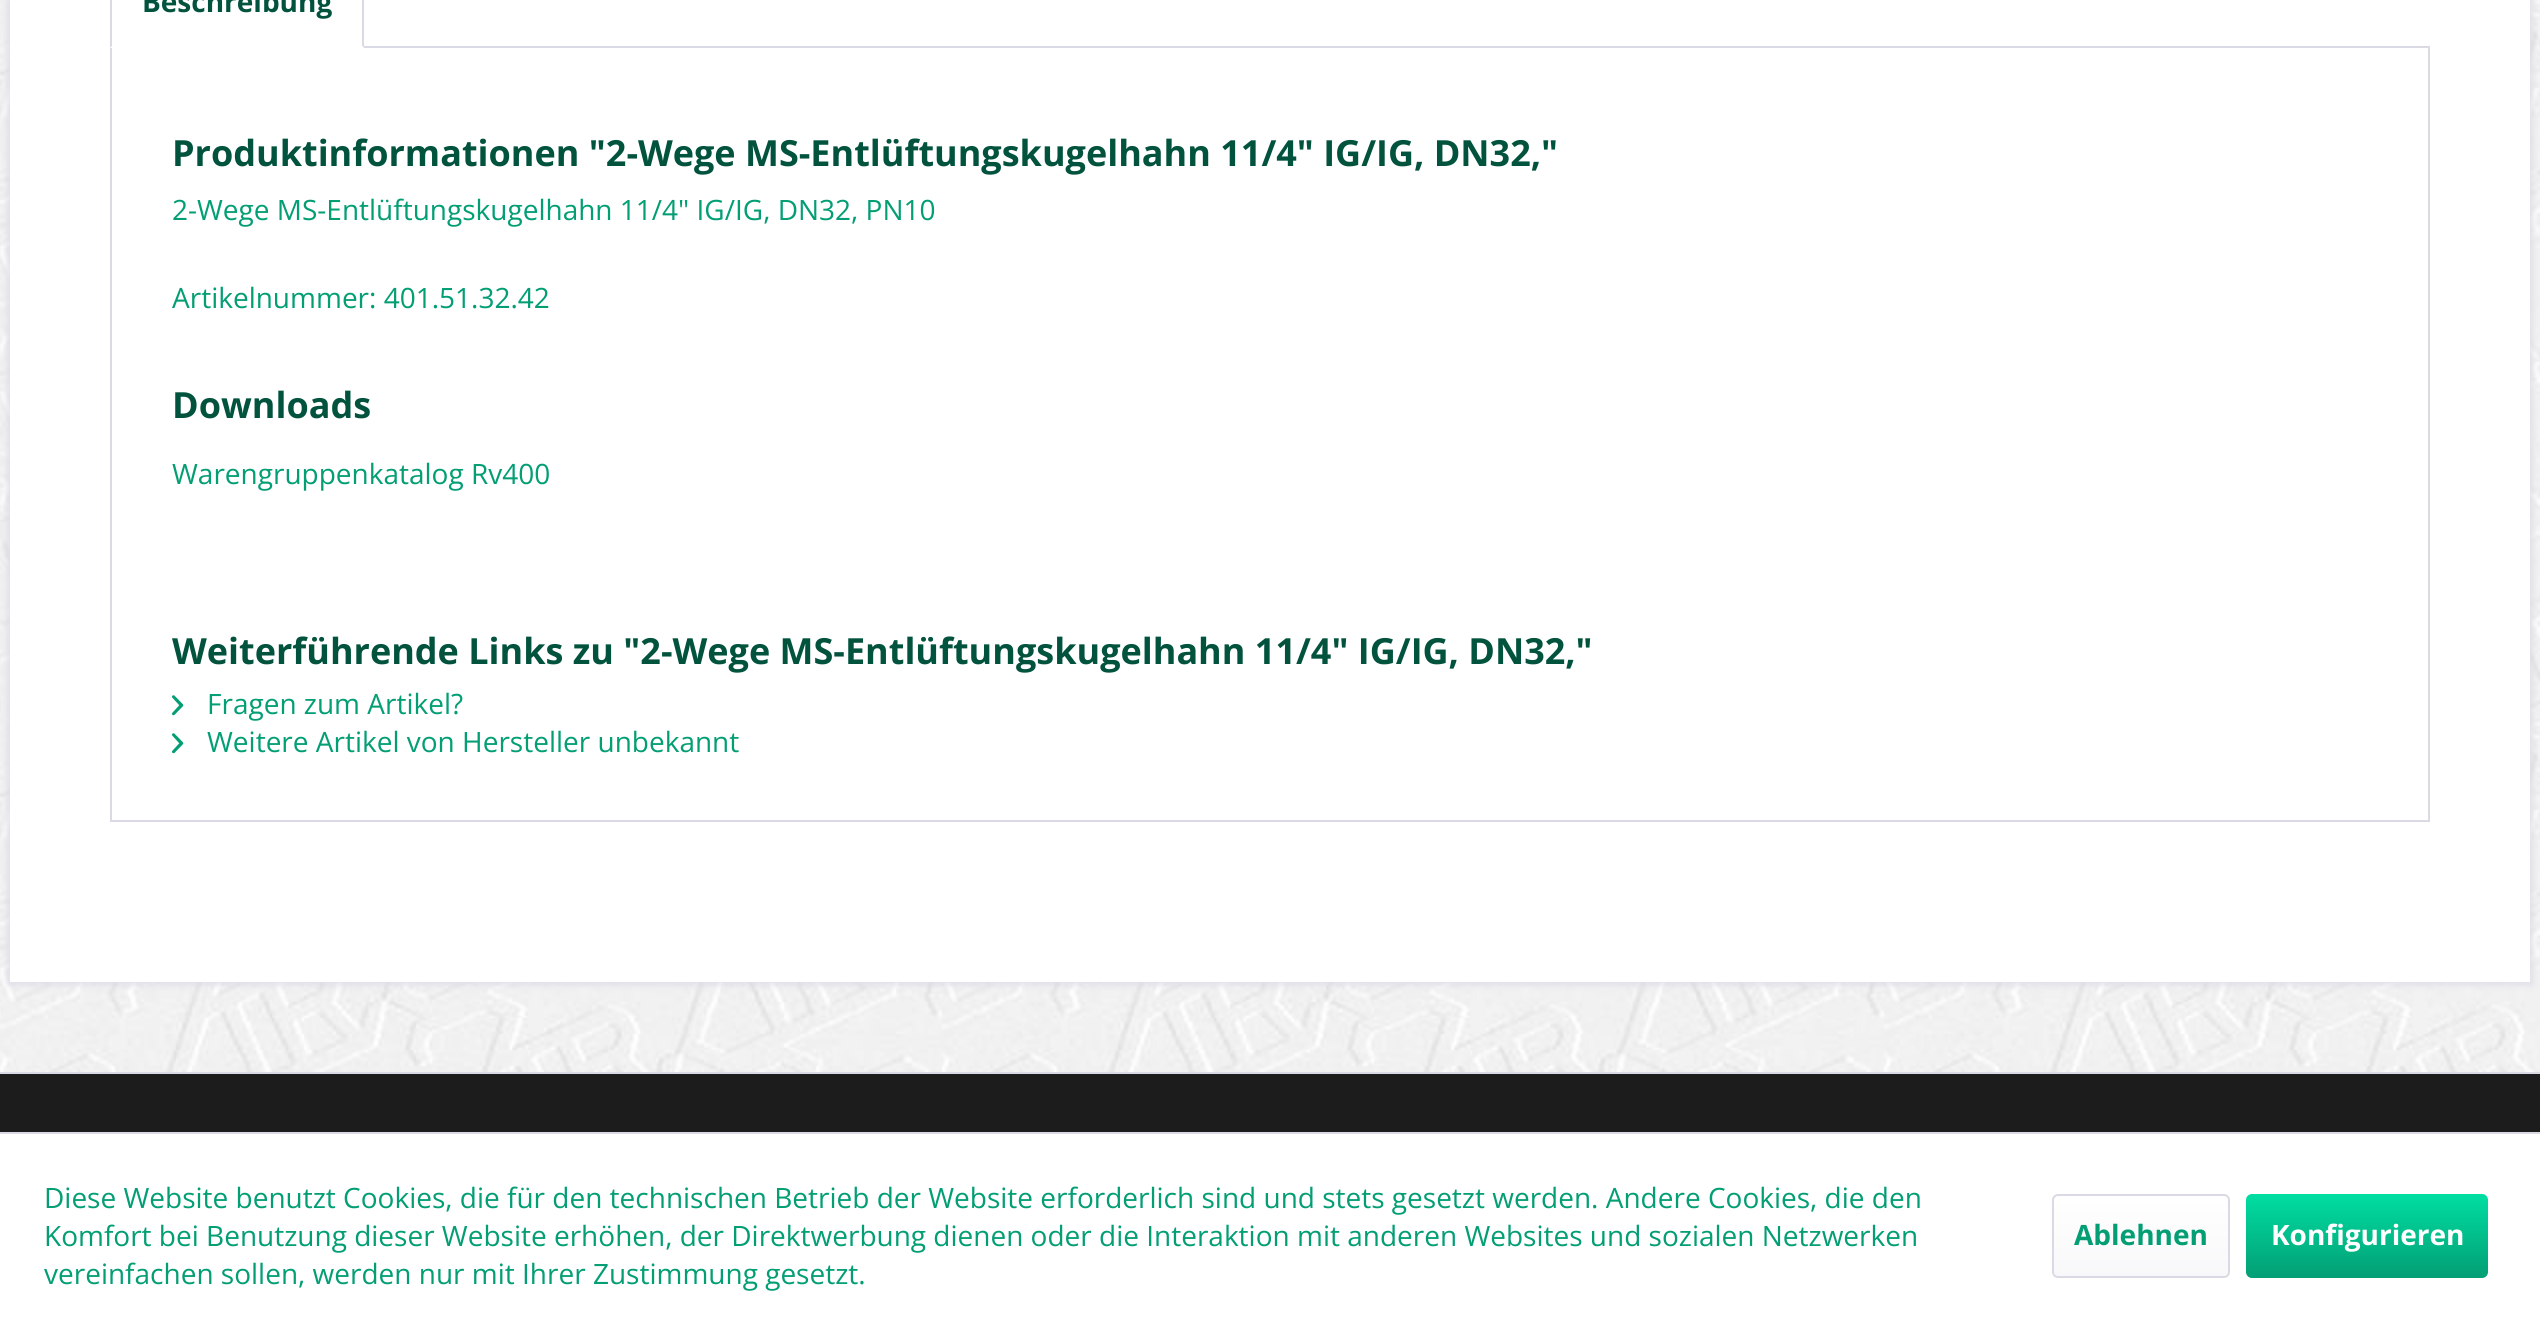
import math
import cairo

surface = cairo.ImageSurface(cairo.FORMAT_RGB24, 2540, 1336)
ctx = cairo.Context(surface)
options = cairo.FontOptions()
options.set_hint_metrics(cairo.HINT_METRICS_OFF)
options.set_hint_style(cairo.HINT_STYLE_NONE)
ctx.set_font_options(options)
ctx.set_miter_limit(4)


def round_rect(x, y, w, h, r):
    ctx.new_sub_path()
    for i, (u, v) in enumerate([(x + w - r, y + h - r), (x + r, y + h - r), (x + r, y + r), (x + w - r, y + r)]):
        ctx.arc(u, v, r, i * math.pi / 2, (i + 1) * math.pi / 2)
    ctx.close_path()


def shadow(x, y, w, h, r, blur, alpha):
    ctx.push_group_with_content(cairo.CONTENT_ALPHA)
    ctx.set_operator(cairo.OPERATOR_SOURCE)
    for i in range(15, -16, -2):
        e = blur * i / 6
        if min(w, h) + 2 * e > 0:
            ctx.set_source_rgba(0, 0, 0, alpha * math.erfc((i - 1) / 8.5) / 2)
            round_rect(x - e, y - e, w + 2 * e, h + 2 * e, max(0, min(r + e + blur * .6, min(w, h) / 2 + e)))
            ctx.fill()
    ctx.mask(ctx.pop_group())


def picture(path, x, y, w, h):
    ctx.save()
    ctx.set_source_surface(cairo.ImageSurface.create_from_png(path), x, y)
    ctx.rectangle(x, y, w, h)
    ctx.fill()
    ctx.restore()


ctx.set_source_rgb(1, 1, 1)
ctx.paint()
picture("img1.png", 0, 0, 2540, 1072)
ctx.set_source_rgb(0.855, 0.855, 0.898)
shadow(8, -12, 2524, 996, 0, 4, 1)
ctx.set_source_rgb(1, 1, 1)
ctx.rectangle(10, 0, 2520, 982)
ctx.fill()
ctx.rectangle(111, 47, 2318, 774)
ctx.set_source_rgb(0.855, 0.855, 0.898)
ctx.stroke()
ctx.set_source_rgb(1, 1, 1)
ctx.rectangle(110, 46, 254, 2)
ctx.fill()
ctx.set_source_rgb(0.855, 0.855, 0.898)
ctx.new_path()
ctx.move_to(364, 48)
ctx.line_to(364, -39)
ctx.line_to(362, -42)
ctx.line_to(361, -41)
ctx.line_to(362, -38)
ctx.line_to(362, 46)
ctx.close_path()
ctx.fill()
ctx.set_source_rgb(1, 1, 1)
ctx.new_path()
ctx.move_to(364, 48)
ctx.line_to(362, 46)
ctx.line_to(112, 46)
ctx.line_to(110, 48)
ctx.close_path()
ctx.fill()
ctx.set_source_rgb(0.855, 0.855, 0.898)
ctx.new_path()
ctx.move_to(110, 48)
ctx.line_to(112, 46)
ctx.line_to(112, -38)
ctx.line_to(113, -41)
ctx.line_to(112, -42)
ctx.curve_to(111, -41, 110, -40, 110, -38)
ctx.close_path()
ctx.fill()
ctx.select_font_face("Open Sans", cairo.FONT_SLANT_NORMAL, cairo.FONT_WEIGHT_BOLD)
ctx.set_font_size(28)
ctx.set_source_rgb(0.008, 0.325, 0.239)
ctx.move_to(142, 12)
ctx.show_text("Beschreibung")
ctx.set_font_size(36)
ctx.move_to(172, 166)
ctx.show_text("Produktinformationen \"2-Wege MS-Entlüftungskugelhahn 11/4\" IG/IG, DN32,\"")
ctx.select_font_face("Open Sans")
ctx.set_font_size(28)
ctx.set_source_rgb(0.012, 0.62, 0.455)
ctx.move_to(172, 220)
ctx.show_text("2-Wege MS-Entlüftungskugelhahn 11/4\" IG/IG, DN32, PN10")
ctx.move_to(172, 308)
ctx.show_text("Artikelnummer: 401.51.32.42")
ctx.select_font_face("Open Sans", cairo.FONT_SLANT_NORMAL, cairo.FONT_WEIGHT_BOLD)
ctx.set_font_size(36)
ctx.set_source_rgb(0.008, 0.325, 0.239)
ctx.move_to(172, 418)
ctx.show_text("Downloads")
ctx.select_font_face("Open Sans")
ctx.set_font_size(28)
ctx.set_source_rgb(0.012, 0.62, 0.455)
ctx.move_to(172, 484)
ctx.show_text("Warengruppenkatalog Rv400")
ctx.select_font_face("Open Sans", cairo.FONT_SLANT_NORMAL, cairo.FONT_WEIGHT_BOLD)
ctx.set_font_size(36)
ctx.set_source_rgb(0.008, 0.325, 0.239)
ctx.move_to(172, 664)
ctx.show_text("Weiterführende Links zu \"2-Wege MS-Entlüftungskugelhahn 11/4\" IG/IG, DN32,\"")
picture("img2.png", 172, 695, 12, 21)
ctx.select_font_face("Open Sans")
ctx.set_font_size(28)
ctx.set_source_rgb(0.012, 0.62, 0.455)
ctx.move_to(207, 714)
ctx.show_text("Fragen zum Artikel?")
picture("img2.png", 172, 733, 12, 21)
ctx.move_to(207, 752)
ctx.show_text("Weitere Artikel von Hersteller unbekannt")
ctx.set_source_rgb(0.11, 0.11, 0.11)
ctx.rectangle(0, 1074, 2540, 58)
ctx.fill()
ctx.set_source_rgb(0.855, 0.855, 0.898)
ctx.rectangle(0, 1072, 2540, 2)
ctx.fill()
ctx.rectangle(0, 1132, 2540, 2)
ctx.fill()
ctx.set_source_rgb(0.012, 0.62, 0.455)
ctx.move_to(44, 1208)
ctx.show_text("Diese Website benutzt Cookies, die für den technischen Betrieb der Website erforderlich sind und stets gesetzt werden. Andere Cookies, die den")
ctx.move_to(44, 1246)
ctx.show_text("Komfort bei Benutzung dieser Website erhöhen, der Direktwerbung dienen oder die Interaktion mit anderen Websites und sozialen Netzwerken")
ctx.move_to(44, 1284)
ctx.show_text("vereinfachen sollen, werden nur mit Ihrer Zustimmung gesetzt.")
gradient = cairo.LinearGradient(2141, 1196, 2141, 1276)
gradient.add_color_stop_rgba(0, 1, 1, 1, 1)
gradient.add_color_stop_rgba(1, 0.973, 0.973, 0.98, 1)
ctx.set_source(gradient)
round_rect(2054, 1196, 174, 80, 4)
ctx.fill()
round_rect(2053, 1195, 176, 82, 5)
ctx.set_source_rgb(0.855, 0.855, 0.898)
ctx.stroke()
ctx.select_font_face("Open Sans", cairo.FONT_SLANT_NORMAL, cairo.FONT_WEIGHT_BOLD)
ctx.set_source_rgb(0.012, 0.62, 0.455)
ctx.move_to(2074, 1245)
ctx.show_text("Ablehnen")
gradient = cairo.LinearGradient(2367, 1194, 2367, 1278)
gradient.add_color_stop_rgba(0, 0, 0.871, 0.635, 1)
gradient.add_color_stop_rgba(1, 0.012, 0.62, 0.455, 1)
ctx.set_source(gradient)
round_rect(2246, 1194, 242, 84, 6)
ctx.fill()
ctx.set_source_rgb(1, 1, 1)
ctx.move_to(2271, 1245)
ctx.show_text("Konfigurieren")
surface.write_to_png("page.png")
